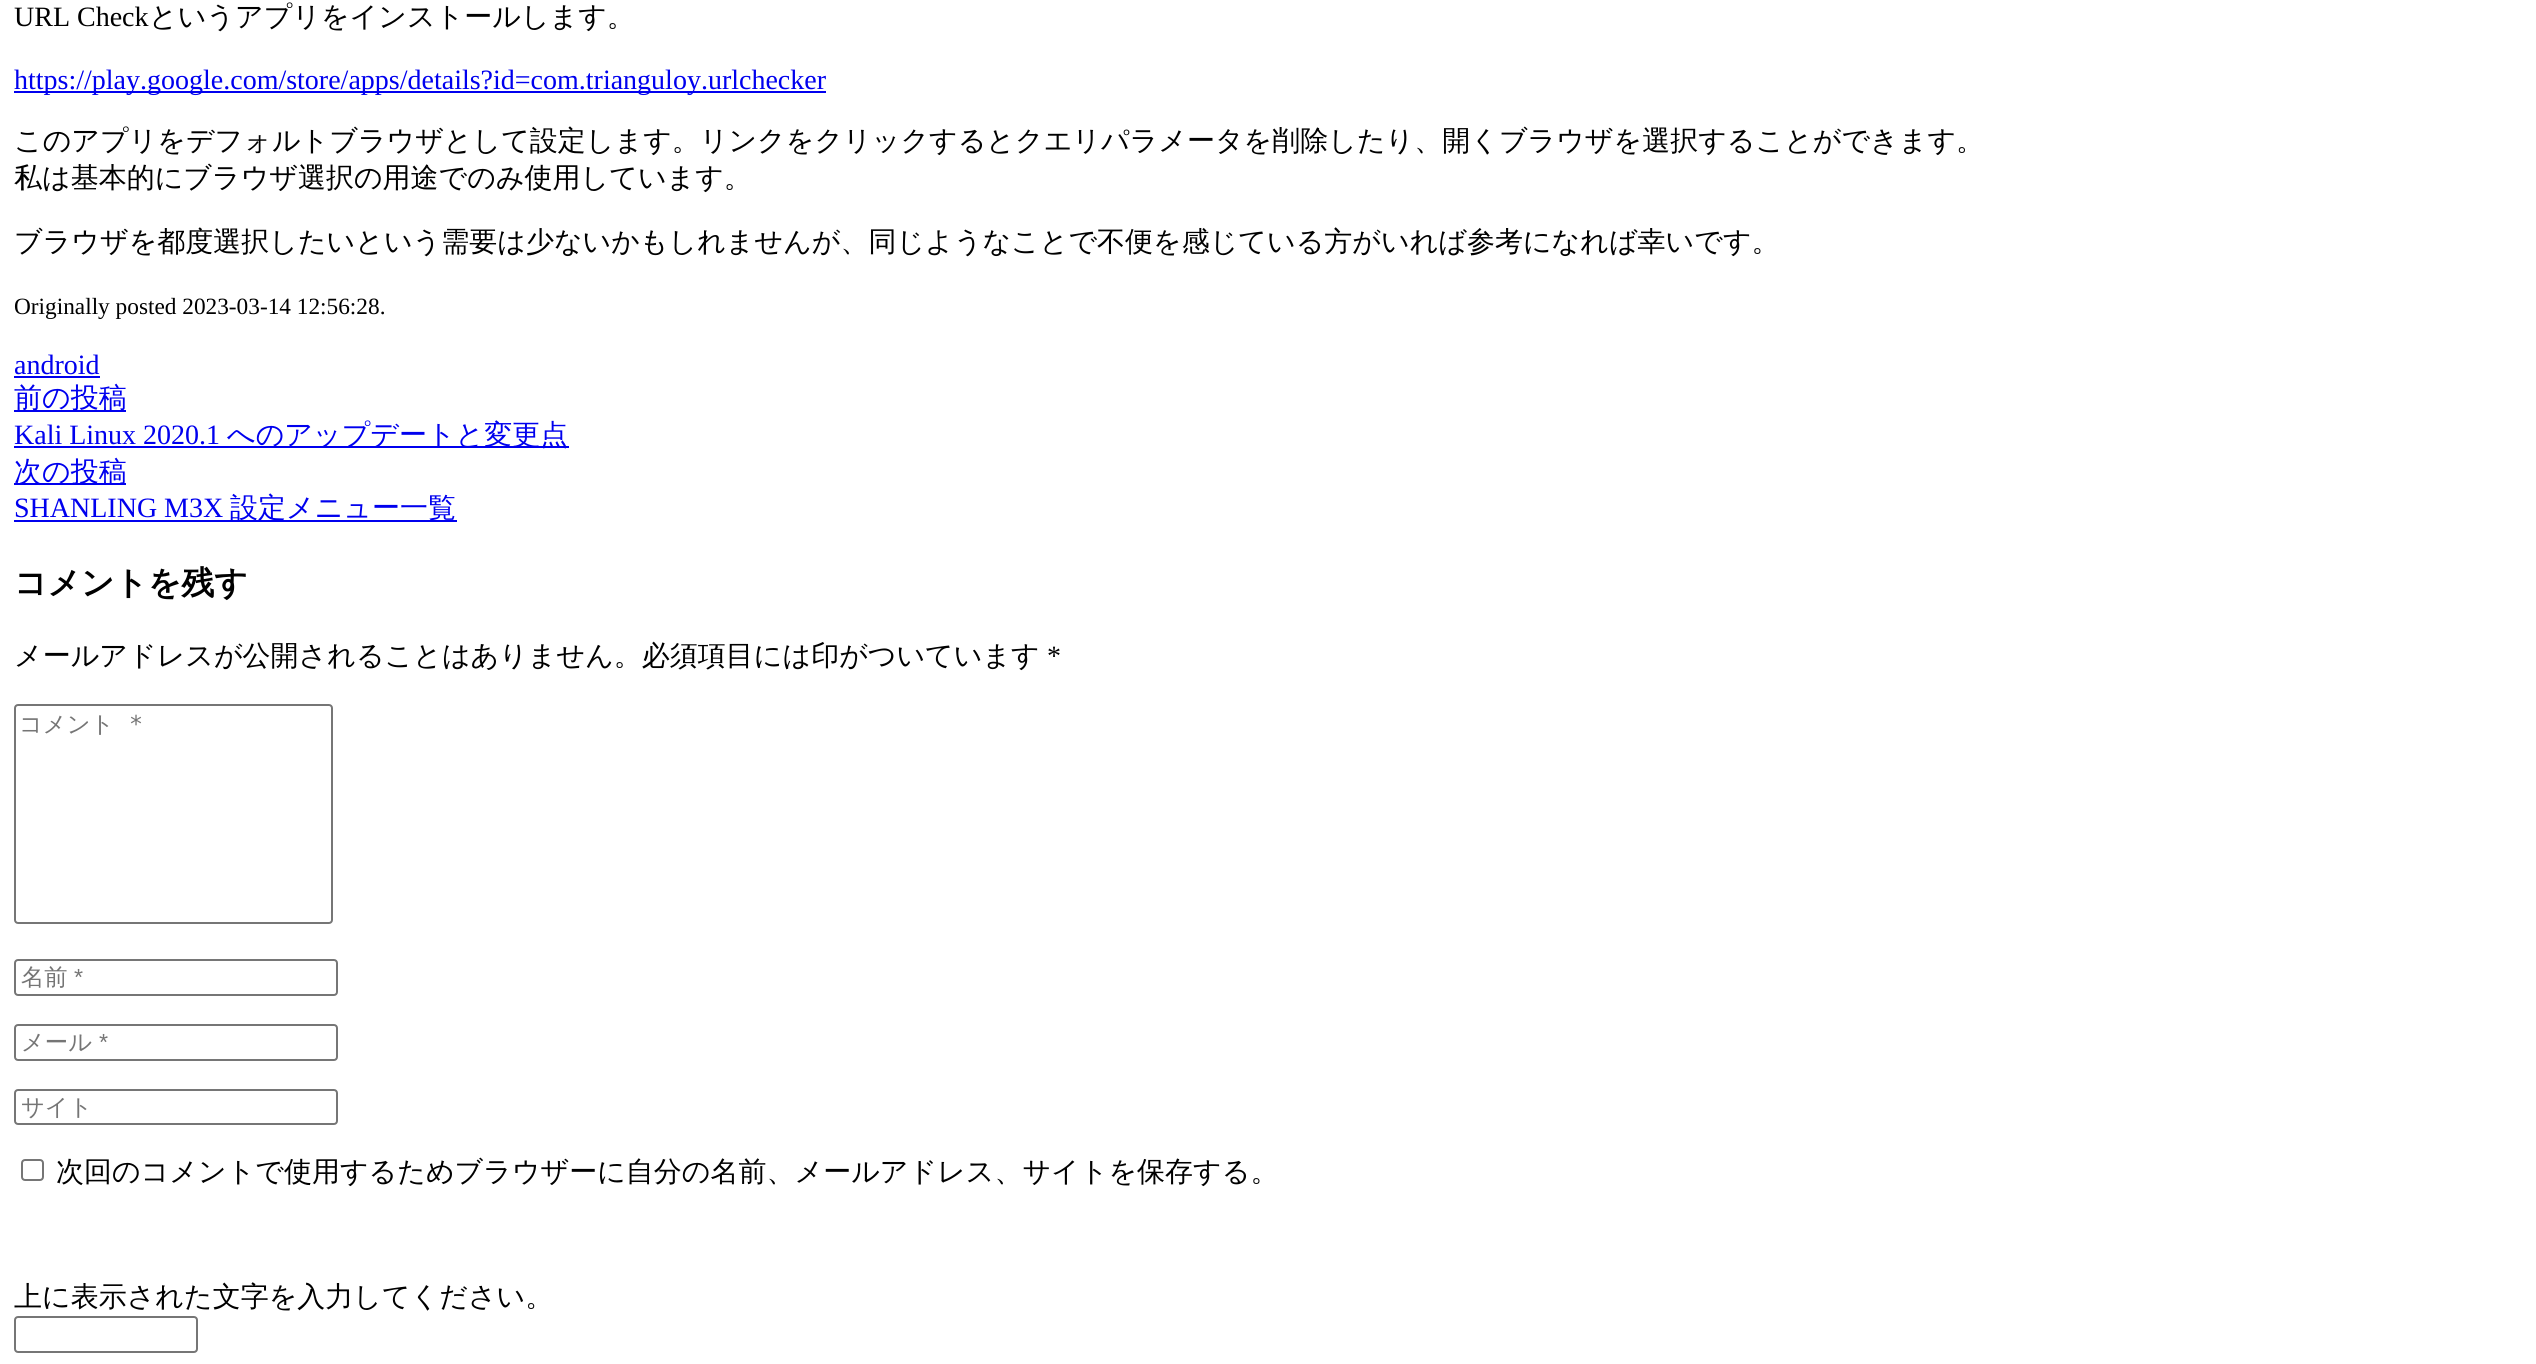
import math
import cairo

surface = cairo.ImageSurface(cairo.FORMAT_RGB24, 2536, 1364)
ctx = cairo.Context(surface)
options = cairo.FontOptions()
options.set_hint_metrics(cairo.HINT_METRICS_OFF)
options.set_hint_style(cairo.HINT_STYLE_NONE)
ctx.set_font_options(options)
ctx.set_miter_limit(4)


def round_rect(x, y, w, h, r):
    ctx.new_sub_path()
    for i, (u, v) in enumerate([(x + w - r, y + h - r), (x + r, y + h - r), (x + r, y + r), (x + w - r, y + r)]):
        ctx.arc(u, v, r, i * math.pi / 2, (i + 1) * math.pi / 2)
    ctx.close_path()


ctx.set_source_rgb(1, 1, 1)
ctx.paint()
ctx.select_font_face("Liberation Serif")
ctx.set_font_size(28)
ctx.set_source_rgb(0, 0, 0)
ctx.move_to(14, 26)
ctx.show_text("URL Check")
ctx.select_font_face("WenQuanYi Zen Hei Medium")
ctx.move_to(149, 26)
ctx.show_text("というアプリをインストールします。")
ctx.set_source_rgb(0, 0, 0.933)
ctx.rectangle(14, 91, 812, 2)
ctx.fill()
ctx.select_font_face("Liberation Serif")
ctx.move_to(14, 89)
ctx.show_text("https://play.google.com/store/apps/details?id=com.trianguloy.urlchecker")
ctx.select_font_face("WenQuanYi Zen Hei Medium")
ctx.set_source_rgb(0, 0, 0)
ctx.move_to(14, 150)
ctx.show_text("このアプリをデフォルトブラウザとして設定します。リンクをクリックするとクエリパラメータを削除したり、開くブラウザを選択することができます。")
ctx.move_to(14, 187)
ctx.show_text("私は基本的にブラウザ選択の用途でのみ使用しています。")
ctx.move_to(14, 251)
ctx.show_text("ブラウザを都度選択したいという需要は少ないかもしれませんが、同じようなことで不便を感じている方がいれば参考になれば幸いです。")
ctx.select_font_face("Liberation Serif")
ctx.set_font_size(23.3)
ctx.move_to(14, 314)
ctx.show_text("Originally posted 2023-03-14 12:56:28.")
ctx.set_font_size(28)
ctx.set_source_rgb(0, 0, 0.933)
ctx.move_to(14, 374)
ctx.show_text("android")
ctx.rectangle(14, 376, 86, 2)
ctx.fill()
ctx.rectangle(14, 410, 112, 2)
ctx.fill()
ctx.select_font_face("WenQuanYi Zen Hei Medium")
ctx.move_to(14, 407)
ctx.show_text("前の投稿")
ctx.select_font_face("Liberation Serif")
ctx.move_to(14, 444)
ctx.show_text("Kali Linux 2020.1")
ctx.rectangle(14, 446, 555, 2)
ctx.fill()
ctx.select_font_face("WenQuanYi Zen Hei Medium")
ctx.move_to(227, 444)
ctx.show_text("へのアップデートと変更点")
ctx.rectangle(14, 483, 112, 2)
ctx.fill()
ctx.move_to(14, 481)
ctx.show_text("次の投稿")
ctx.select_font_face("Liberation Serif")
ctx.move_to(14, 517)
ctx.show_text("SHANLING M3X")
ctx.rectangle(14, 520, 443, 2)
ctx.fill()
ctx.select_font_face("WenQuanYi Zen Hei Medium")
ctx.move_to(230, 517)
ctx.show_text("設定メニュー一覧")
ctx.select_font_face("WenQuanYi Zen Hei", cairo.FONT_SLANT_NORMAL, cairo.FONT_WEIGHT_BOLD)
ctx.set_font_size(32.75)
ctx.set_source_rgb(0, 0, 0)
ctx.move_to(14, 594)
ctx.show_text("コメントを残す")
ctx.select_font_face("WenQuanYi Zen Hei Medium")
ctx.set_font_size(28)
ctx.move_to(14, 665)
ctx.show_text("メールアドレスが公開されることはありません。必須項目には印がついています")
ctx.select_font_face("Liberation Serif")
ctx.move_to(1047, 665)
ctx.show_text("*")
round_rect(15, 705, 317, 218, 3)
ctx.set_source_rgb(0.463, 0.463, 0.463)
ctx.stroke()
ctx.select_font_face("WenQuanYi Zen Hei Medium")
ctx.set_font_size(23.3)
ctx.set_source_rgb(0.459, 0.459, 0.459)
ctx.move_to(19, 732)
ctx.show_text("コメント")
ctx.select_font_face("DejaVu Sans Mono")
ctx.move_to(129, 732)
ctx.show_text("*")
round_rect(15, 960, 322, 35, 3)
ctx.set_source_rgb(0.463, 0.463, 0.463)
ctx.stroke()
ctx.select_font_face("WenQuanYi Zen Hei Medium")
ctx.set_source_rgb(0.459, 0.459, 0.459)
ctx.move_to(21, 985)
ctx.show_text("名前")
ctx.select_font_face("Liberation Sans")
ctx.move_to(74, 985)
ctx.show_text("*")
round_rect(15, 1025, 322, 35, 3)
ctx.set_source_rgb(0.463, 0.463, 0.463)
ctx.stroke()
ctx.select_font_face("WenQuanYi Zen Hei Medium")
ctx.set_source_rgb(0.459, 0.459, 0.459)
ctx.move_to(21, 1050)
ctx.show_text("メール")
ctx.select_font_face("Liberation Sans")
ctx.move_to(99, 1050)
ctx.show_text("*")
round_rect(15, 1090, 322, 34, 3)
ctx.set_source_rgb(0.463, 0.463, 0.463)
ctx.stroke()
ctx.select_font_face("WenQuanYi Zen Hei Medium")
ctx.set_source_rgb(0.459, 0.459, 0.459)
ctx.move_to(21, 1115)
ctx.show_text("サイト")
round_rect(22, 1160, 21, 20, 3)
ctx.set_source_rgb(0.463, 0.463, 0.463)
ctx.stroke()
ctx.set_font_size(28)
ctx.set_source_rgb(0, 0, 0)
ctx.move_to(56, 1181)
ctx.show_text("次回のコメントで使用するためブラウザーに自分の名前、メールアドレス、サイトを保存する。")
ctx.move_to(14, 1306)
ctx.show_text("上に表示された文字を入力してください。")
round_rect(15, 1317, 182, 35, 3)
ctx.set_source_rgb(0.463, 0.463, 0.463)
ctx.stroke()
surface.write_to_png("page.png")
